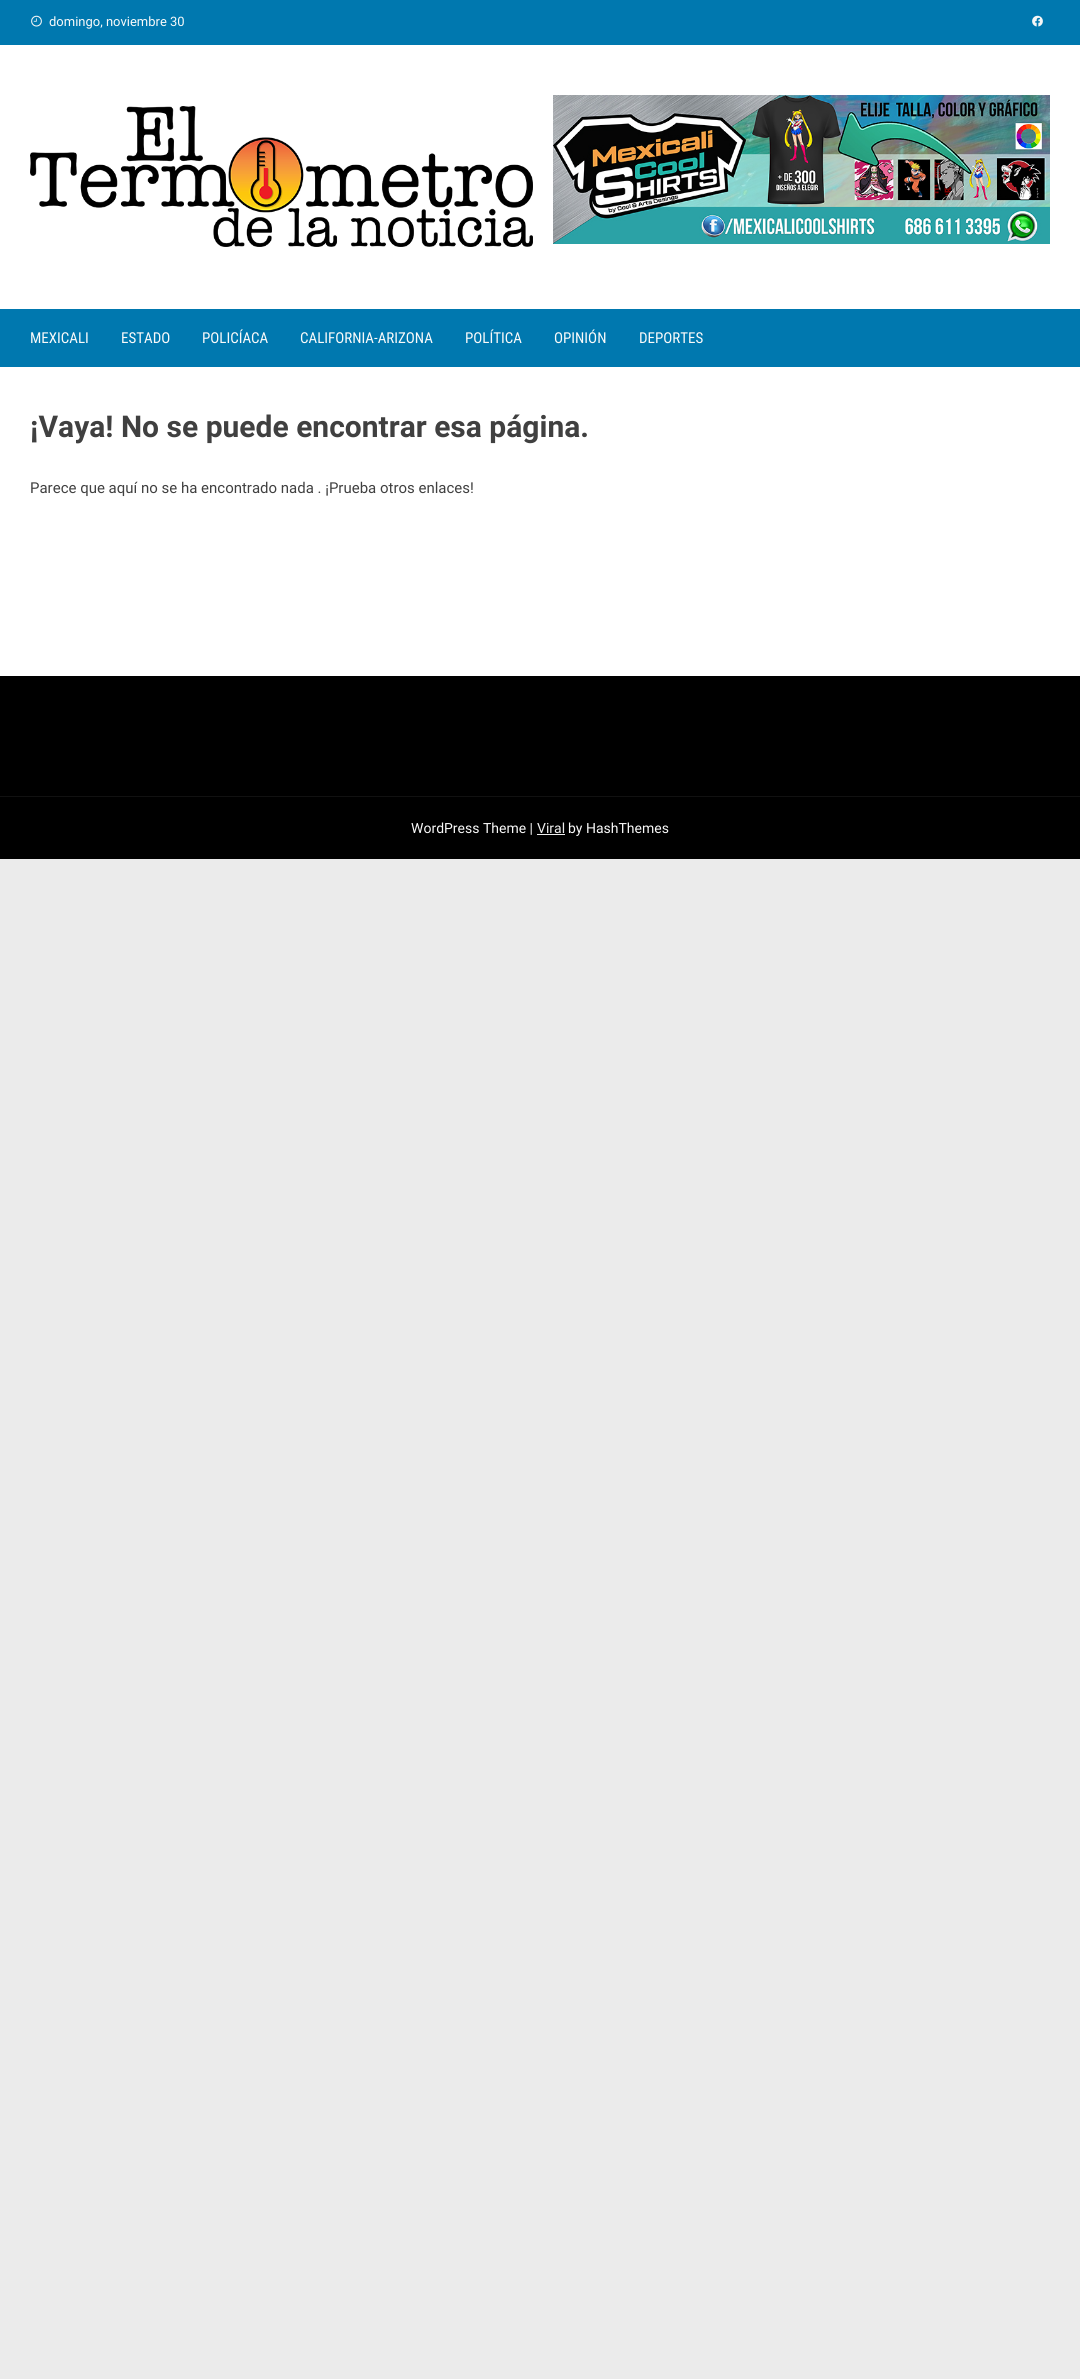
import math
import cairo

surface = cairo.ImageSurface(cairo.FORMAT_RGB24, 1080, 2379)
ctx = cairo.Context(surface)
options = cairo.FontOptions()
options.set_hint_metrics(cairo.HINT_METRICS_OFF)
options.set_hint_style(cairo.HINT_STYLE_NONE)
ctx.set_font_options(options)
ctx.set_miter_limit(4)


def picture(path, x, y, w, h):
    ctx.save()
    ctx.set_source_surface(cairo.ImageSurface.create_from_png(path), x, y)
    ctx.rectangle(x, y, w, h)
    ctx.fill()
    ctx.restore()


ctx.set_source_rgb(0.918, 0.918, 0.918)
ctx.paint()
ctx.set_source_rgb(1, 1, 1)
ctx.rectangle(0, 45, 1080, 631)
ctx.fill()
ctx.set_source_rgb(0, 0.471, 0.686)
ctx.rectangle(0, 0, 1080, 45)
ctx.fill()
picture("img1.png", 31, 15, 11, 12)
ctx.select_font_face("Roboto")
ctx.set_font_size(13)
ctx.set_source_rgb(0.98, 0.98, 0.98)
ctx.move_to(49, 26)
ctx.show_text("domingo, noviembre 30")
picture("img2.png", 1032, 15, 11, 12)
picture("img3.png", 30, 106, 503, 141)
picture("img4.png", 553, 95, 497, 149)
ctx.set_source_rgb(0, 0.471, 0.686)
ctx.rectangle(0, 309, 1080, 58)
ctx.fill()
ctx.select_font_face("Roboto Condensed")
ctx.set_font_size(15)
ctx.set_source_rgb(0.98, 0.98, 0.98)
ctx.move_to(30, 343)
ctx.show_text("MEXICALI")
ctx.move_to(121, 343)
ctx.show_text("ESTADO")
ctx.move_to(202, 343)
ctx.show_text("POLICÍACA")
ctx.move_to(300, 343)
ctx.show_text("CALIFORNIA-ARIZONA")
ctx.move_to(465, 343)
ctx.show_text("POLÍTICA")
ctx.move_to(554, 343)
ctx.show_text("OPINIÓN")
ctx.move_to(639, 343)
ctx.show_text("DEPORTES")
ctx.select_font_face("Roboto", cairo.FONT_SLANT_NORMAL, cairo.FONT_WEIGHT_BOLD)
ctx.set_font_size(30)
ctx.set_source_rgb(0.251, 0.251, 0.251)
ctx.move_to(30, 437)
ctx.show_text("¡Vaya! No se puede encontrar esa página.")
ctx.select_font_face("Roboto")
ctx.set_font_size(15)
ctx.move_to(30, 493)
ctx.show_text("Parece que aquí no se ha encontrado nada . ¡Prueba otros enlaces!")
ctx.set_source_rgb(0, 0, 0)
ctx.rectangle(0, 676, 1080, 183)
ctx.fill()
ctx.set_source_rgb(0.067, 0.067, 0.067)
ctx.rectangle(0, 796, 1080, 1)
ctx.fill()
ctx.set_font_size(14)
ctx.set_source_rgb(0.98, 0.98, 0.98)
ctx.move_to(411, 833)
ctx.show_text("WordPress Theme |")
ctx.set_source_rgb(0.941, 0.941, 0.941)
ctx.move_to(537, 833)
ctx.show_text("Viral")
ctx.rectangle(537, 834, 28, 1)
ctx.fill()
ctx.set_source_rgb(0.98, 0.98, 0.98)
ctx.move_to(568, 833)
ctx.show_text("by HashThemes")
surface.write_to_png("page.png")
